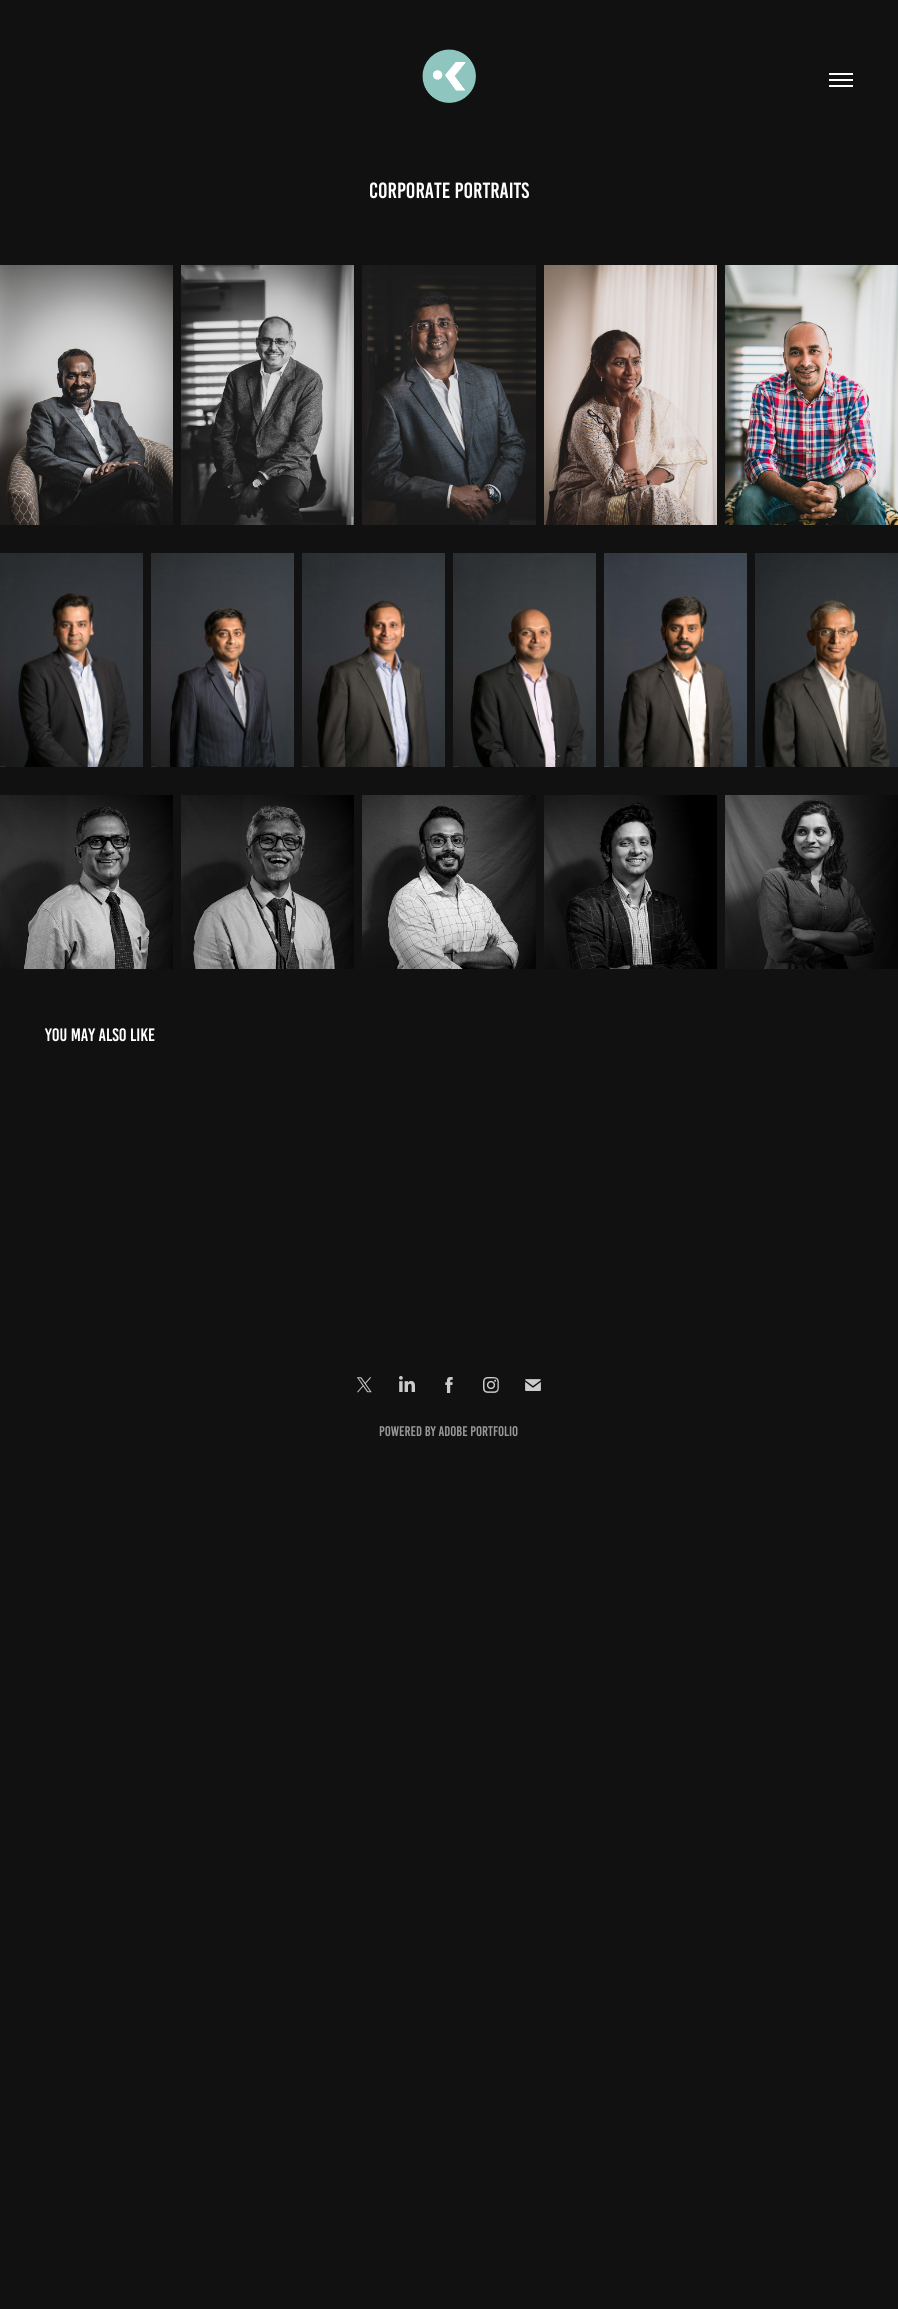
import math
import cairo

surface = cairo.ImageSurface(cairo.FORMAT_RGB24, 898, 2309)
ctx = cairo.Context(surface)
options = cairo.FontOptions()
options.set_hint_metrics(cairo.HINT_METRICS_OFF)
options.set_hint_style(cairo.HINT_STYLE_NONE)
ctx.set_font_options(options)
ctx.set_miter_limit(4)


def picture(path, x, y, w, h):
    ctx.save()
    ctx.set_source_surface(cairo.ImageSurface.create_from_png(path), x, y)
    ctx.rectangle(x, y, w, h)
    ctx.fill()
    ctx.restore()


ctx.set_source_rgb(0.067, 0.067, 0.067)
ctx.paint()
picture("img1.png", 422, 49, 54, 54)
ctx.set_source_rgb(1, 1, 1)
ctx.rectangle(829, 73, 24, 2)
ctx.fill()
ctx.rectangle(829, 79, 24, 2)
ctx.fill()
ctx.rectangle(829, 85, 24, 2)
ctx.fill()
ctx.select_font_face("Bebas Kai")
ctx.set_font_size(22)
ctx.move_to(369, 198)
ctx.show_text("Corporate Portraits")
picture("img2.png", 0, 265, 173, 260)
picture("img3.png", 181, 265, 173, 260)
picture("img4.png", 362, 265, 174, 260)
picture("img5.png", 544, 265, 173, 260)
picture("img6.png", 725, 265, 173, 260)
picture("img7.png", 0, 553, 143, 214)
picture("img8.png", 151, 553, 143, 214)
picture("img9.png", 302, 553, 143, 214)
picture("img10.png", 453, 553, 143, 214)
picture("img11.png", 604, 553, 143, 214)
picture("img12.png", 755, 553, 143, 214)
picture("img13.png", 0, 795, 173, 174)
picture("img14.png", 181, 795, 173, 174)
picture("img15.png", 362, 795, 174, 174)
picture("img16.png", 544, 795, 173, 174)
picture("img17.png", 725, 795, 173, 174)
ctx.set_font_size(18)
ctx.move_to(45, 1041)
ctx.show_text("You may also like")
picture("img18.png", 357, 1377, 15, 16)
picture("img19.png", 399, 1376, 16, 16)
picture("img20.png", 445, 1377, 8, 16)
picture("img21.png", 483, 1377, 16, 16)
picture("img22.png", 525, 1379, 16, 12)
ctx.set_font_size(14)
ctx.set_source_rgb(0.6, 0.6, 0.6)
ctx.move_to(379, 1436)
ctx.show_text("Powered by Adobe Portfolio")
surface.write_to_png("page.png")
